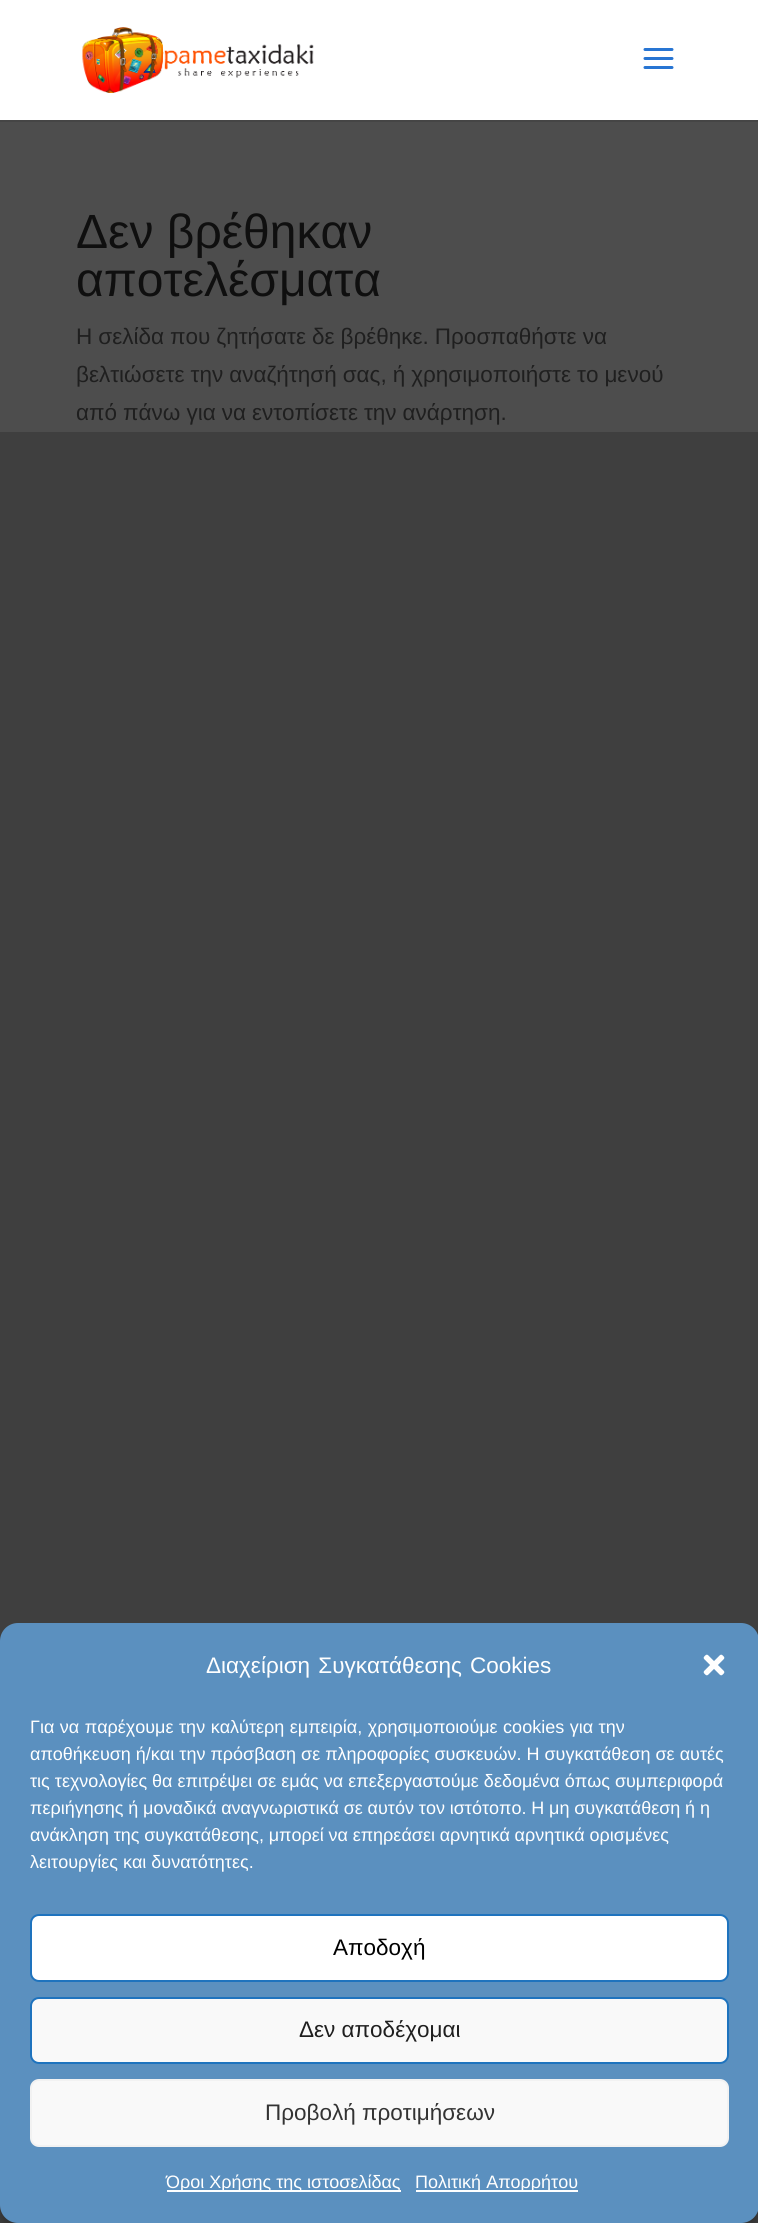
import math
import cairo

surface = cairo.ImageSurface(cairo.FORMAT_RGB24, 758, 2223)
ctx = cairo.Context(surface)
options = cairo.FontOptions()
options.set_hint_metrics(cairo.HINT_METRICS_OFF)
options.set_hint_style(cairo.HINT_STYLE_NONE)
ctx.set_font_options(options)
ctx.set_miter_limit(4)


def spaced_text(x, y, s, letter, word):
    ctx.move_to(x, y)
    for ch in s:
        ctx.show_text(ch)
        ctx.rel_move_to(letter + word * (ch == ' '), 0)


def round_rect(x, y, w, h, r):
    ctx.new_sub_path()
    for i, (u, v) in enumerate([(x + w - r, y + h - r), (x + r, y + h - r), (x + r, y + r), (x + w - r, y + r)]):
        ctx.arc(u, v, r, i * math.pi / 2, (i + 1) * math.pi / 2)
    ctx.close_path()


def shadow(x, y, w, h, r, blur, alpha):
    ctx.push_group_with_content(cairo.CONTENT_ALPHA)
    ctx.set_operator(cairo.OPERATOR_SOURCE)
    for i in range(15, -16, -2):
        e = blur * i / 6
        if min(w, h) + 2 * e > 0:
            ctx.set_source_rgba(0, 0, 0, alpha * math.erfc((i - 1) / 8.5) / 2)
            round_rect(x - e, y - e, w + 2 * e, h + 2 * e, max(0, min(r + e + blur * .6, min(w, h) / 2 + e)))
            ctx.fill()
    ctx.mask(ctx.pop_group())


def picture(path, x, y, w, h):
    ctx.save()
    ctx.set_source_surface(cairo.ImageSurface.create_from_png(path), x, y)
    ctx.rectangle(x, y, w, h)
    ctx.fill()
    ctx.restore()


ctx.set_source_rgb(0.247, 0.247, 0.247)
ctx.paint()
ctx.set_source_rgb(0.271, 0.271, 0.271)
ctx.rectangle(0, 120, 758, 2)
ctx.fill()
ctx.set_source_rgb(1, 1, 1)
ctx.rectangle(0, 0, 758, 120)
ctx.fill()
picture("img1.png", 82, 27, 232, 66)
picture("img2.png", 643, 48, 31, 21)
ctx.set_source_rgb(0.302, 0.302, 0.302)
ctx.rectangle(0, 122, 758, 310)
ctx.fill()
ctx.select_font_face("Liberation Sans")
ctx.set_font_size(48)
ctx.set_source_rgb(0.059, 0.059, 0.059)
ctx.move_to(76, 248)
ctx.show_text("Δεν βρέθηκαν")
ctx.move_to(76, 296)
ctx.show_text("αποτελέσματα")
ctx.set_font_size(22.5)
ctx.set_source_rgb(0.122, 0.122, 0.122)
spaced_text(76, 344, "Η σελίδα που ζητήσατε δε βρέθηκε. Προσπαθήστε να", 0, -0.25)
spaced_text(76, 382, "βελτιώσετε την αναζήτησή σας, ή χρησιμοποιήστε το μενού", 0, -0.25)
spaced_text(76, 420, "από πάνω για να εντοπίσετε την ανάρτηση.", 0, -0.25)
ctx.set_source_rgb(0, 0, 0)
shadow(0, 1632, 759, 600, 18, 4.5, 0.23)
ctx.set_source_rgb(0.357, 0.565, 0.749)
round_rect(0, 1623, 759, 600, 18)
ctx.fill()
ctx.set_source_rgb(1, 1, 1)
spaced_text(206, 1673, "Διαχείριση Συγκατάθεσης Cookies", 0, 2)
picture("img3.png", 703, 1654, 22, 22)
ctx.set_font_size(18)
spaced_text(30, 1733, "Για να παρέχουμε την καλύτερη εμπειρία, χρησιμοποιούμε cookies για την", 0, 0.5)
ctx.move_to(30, 1760)
ctx.show_text("αποθήκευση ή/και την πρόσβαση σε πληροφορίες συσκευών. Η συγκατάθεση σε αυτές")
ctx.move_to(30, 1787)
ctx.show_text("τις τεχνολογίες θα επιτρέψει σε εμάς να επεξεργαστούμε δεδομένα όπως συμπεριφορά")
spaced_text(30, 1814, "περιήγησης ή μοναδικά αναγνωριστικά σε αυτόν τον ιστότοπο. Η μη συγκατάθεση ή η", 0, -0.2)
spaced_text(30, 1841, "ανάκληση της συγκατάθεσης, μπορεί να επηρεάσει αρνητικά αρνητικά ορισμένες", 0, -0.25)
ctx.move_to(30, 1868)
ctx.show_text("λειτουργίες και δυνατότητες.")
round_rect(31, 1915, 697, 66, 8)
ctx.fill_preserve()
ctx.set_source_rgb(0.118, 0.451, 0.745)
ctx.stroke()
ctx.set_font_size(22.5)
ctx.set_source_rgb(0, 0, 0)
ctx.move_to(333, 1955)
ctx.show_text("Αποδοχή")
ctx.set_source_rgb(0.976, 0.976, 0.976)
round_rect(31, 1998, 697, 65, 8)
ctx.fill_preserve()
ctx.set_source_rgb(0.118, 0.451, 0.745)
ctx.stroke()
ctx.set_source_rgb(0.122, 0.122, 0.122)
ctx.move_to(299, 2037)
ctx.show_text("Δεν αποδέχομαι")
ctx.set_source_rgb(0.976, 0.976, 0.976)
round_rect(31, 2080, 697, 66, 8)
ctx.fill_preserve()
ctx.set_source_rgb(0.949, 0.949, 0.949)
ctx.stroke()
ctx.set_source_rgb(0.2, 0.2, 0.2)
ctx.move_to(265, 2120)
ctx.show_text("Προβολή προτιμήσεων")
ctx.set_source_rgb(1, 1, 1)
ctx.rectangle(167, 2190, 234, 2)
ctx.fill()
ctx.set_font_size(18)
ctx.move_to(166, 2188)
ctx.show_text("Όροι Χρήσης της ιστοσελίδας")
ctx.rectangle(416, 2190, 162, 2)
ctx.fill()
ctx.move_to(415, 2188)
ctx.show_text("Πολιτική Απορρήτου")
surface.write_to_png("page.png")
